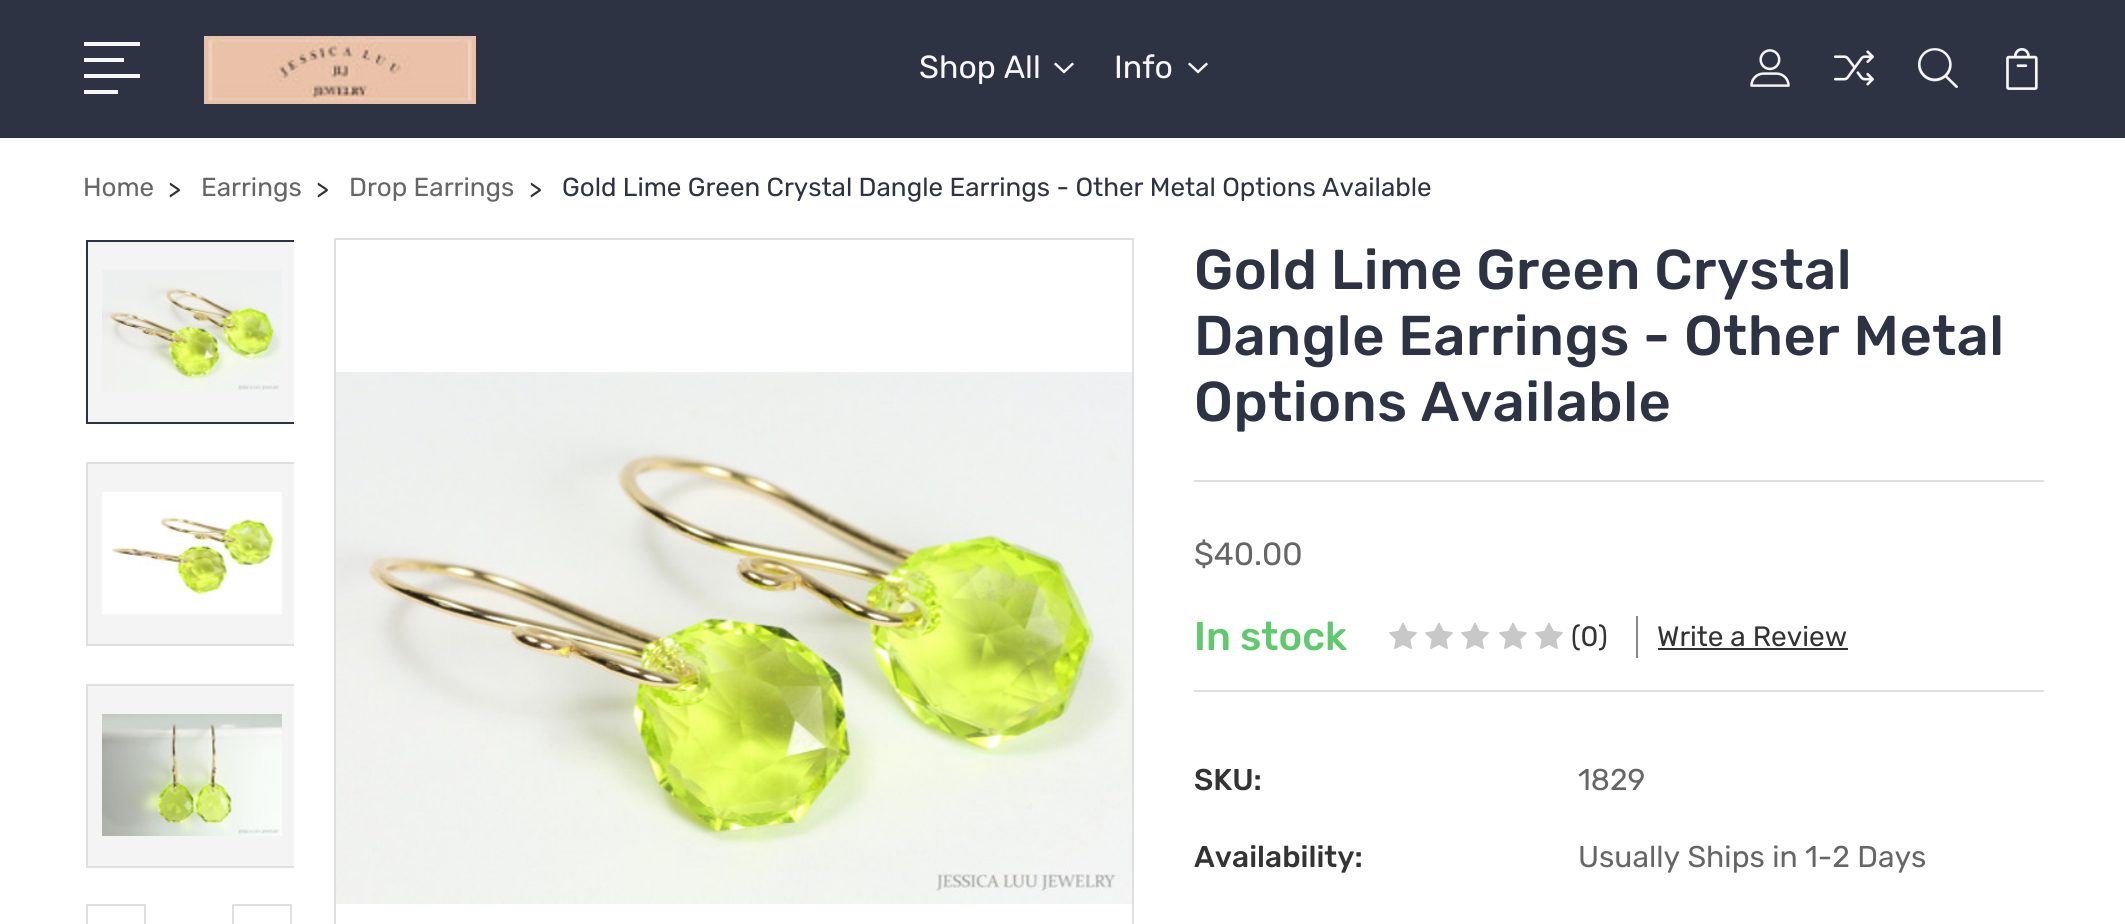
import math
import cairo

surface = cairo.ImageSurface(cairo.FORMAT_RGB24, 2125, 924)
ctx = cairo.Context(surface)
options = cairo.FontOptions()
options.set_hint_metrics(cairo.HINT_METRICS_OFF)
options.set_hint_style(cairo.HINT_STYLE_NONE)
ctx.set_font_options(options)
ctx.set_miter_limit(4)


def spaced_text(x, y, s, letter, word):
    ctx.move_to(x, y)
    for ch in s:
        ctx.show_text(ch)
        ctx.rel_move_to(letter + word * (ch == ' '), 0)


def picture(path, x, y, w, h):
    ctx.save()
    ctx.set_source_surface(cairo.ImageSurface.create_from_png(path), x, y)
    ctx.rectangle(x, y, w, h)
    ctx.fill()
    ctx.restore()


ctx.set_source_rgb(1, 1, 1)
ctx.paint()
ctx.set_source_rgb(0.18, 0.2, 0.267)
ctx.rectangle(0, 0, 2125, 138)
ctx.fill()
ctx.set_source_rgb(0.965, 0.965, 0.965)
ctx.rectangle(84, 42, 56, 4)
ctx.fill()
ctx.rectangle(84, 58, 40, 4)
ctx.fill()
ctx.rectangle(84, 74, 56, 4)
ctx.fill()
ctx.rectangle(84, 90, 34, 4)
ctx.fill()
picture("img1.png", 204, 36, 272, 68)
ctx.select_font_face("Rubik")
ctx.set_font_size(32)
ctx.move_to(919, 78)
ctx.show_text("Shop All")
picture("img2.png", 1054, 62, 20, 12)
ctx.move_to(1114, 78)
ctx.show_text("Info")
picture("img2.png", 1188, 62, 20, 12)
picture("img3.png", 1750, 49, 40, 38)
picture("img4.png", 1834, 50, 40, 36)
picture("img5.png", 1918, 48, 40, 40)
picture("img6.png", 2006, 48, 32, 42)
ctx.set_font_size(26)
ctx.set_source_rgb(0.4, 0.4, 0.4)
ctx.move_to(83, 196)
ctx.show_text("Home")
ctx.set_source_rgb(0.2, 0.2, 0.2)
ctx.move_to(168, 198)
ctx.show_text(">")
ctx.set_source_rgb(0.4, 0.4, 0.4)
ctx.move_to(201, 196)
ctx.show_text("Earrings")
ctx.set_source_rgb(0.2, 0.2, 0.2)
ctx.move_to(316, 198)
ctx.show_text(">")
ctx.set_source_rgb(0.4, 0.4, 0.4)
ctx.move_to(349, 196)
ctx.show_text("Drop Earrings")
ctx.set_source_rgb(0.2, 0.2, 0.2)
ctx.move_to(529, 198)
ctx.show_text(">")
ctx.set_source_rgb(0.18, 0.2, 0.267)
ctx.move_to(562, 196)
ctx.show_text("Gold Lime Green Crystal Dangle Earrings - Other Metal Options Available")
ctx.set_source_rgb(0.957, 0.957, 0.957)
ctx.rectangle(88, 242, 206, 180)
ctx.fill()
ctx.save()
ctx.rectangle(84, 238, 210, 666)
ctx.clip()
ctx.rectangle(87, 241, 210, 182)
ctx.set_source_rgb(0.18, 0.2, 0.267)
ctx.stroke()
ctx.restore()
picture("img7.png", 102, 270, 180, 122)
ctx.rectangle(88, 464, 206, 180)
ctx.fill()
ctx.save()
ctx.rectangle(84, 238, 210, 666)
ctx.clip()
ctx.rectangle(87, 463, 210, 182)
ctx.set_source_rgb(0.875, 0.875, 0.875)
ctx.stroke()
ctx.restore()
picture("img8.png", 102, 492, 180, 122)
ctx.rectangle(88, 686, 206, 180)
ctx.fill()
ctx.save()
ctx.rectangle(84, 238, 210, 666)
ctx.clip()
ctx.rectangle(87, 685, 210, 182)
ctx.set_source_rgb(0.875, 0.875, 0.875)
ctx.stroke()
ctx.restore()
picture("img9.png", 102, 714, 180, 122)
ctx.rectangle(87, 905, 58, 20)
ctx.set_source_rgb(0.875, 0.875, 0.875)
ctx.stroke()
ctx.rectangle(233, 905, 58, 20)
ctx.stroke()
ctx.rectangle(335, 239, 798, 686)
ctx.stroke()
picture("img10.png", 336, 372, 796, 532)
ctx.select_font_face("Rubik Medium")
ctx.set_font_size(56)
ctx.set_source_rgb(0.18, 0.2, 0.267)
spaced_text(1194, 289, "Gold Lime Green Crystal", 0.5, 0)
spaced_text(1194, 355, "Dangle Earrings - Other Metal", 0.5, 0)
spaced_text(1194, 421, "Options Available", 0.5, 0)
ctx.set_source_rgb(0.875, 0.875, 0.875)
ctx.rectangle(1194, 480, 850, 2)
ctx.fill()
ctx.rectangle(1194, 690, 850, 2)
ctx.fill()
ctx.select_font_face("Rubik")
ctx.set_font_size(32)
ctx.set_source_rgb(0.4, 0.4, 0.4)
ctx.move_to(1194, 565)
ctx.show_text("$40.00")
ctx.select_font_face("Rubik Medium")
ctx.set_font_size(40)
ctx.set_source_rgb(0.365, 0.796, 0.424)
ctx.move_to(1194, 650)
ctx.show_text("In stock")
picture("img11.png", 1389, 622, 28, 27)
picture("img11.png", 1425, 622, 28, 27)
picture("img11.png", 1461, 622, 28, 27)
picture("img11.png", 1499, 622, 28, 27)
picture("img11.png", 1535, 622, 28, 27)
ctx.select_font_face("Rubik")
ctx.set_font_size(28)
ctx.set_source_rgb(0.2, 0.2, 0.2)
ctx.move_to(1571, 646)
ctx.show_text("(0)")
ctx.set_source_rgb(0.533, 0.533, 0.533)
ctx.rectangle(1636, 616, 2, 42)
ctx.fill()
ctx.set_source_rgb(0.2, 0.2, 0.2)
ctx.move_to(1657, 646)
ctx.show_text("Write a Review")
ctx.rectangle(1658, 648, 190, 2)
ctx.fill()
ctx.select_font_face("Rubik Medium")
ctx.set_font_size(30)
ctx.move_to(1194, 790)
ctx.show_text("SKU:")
ctx.select_font_face("Rubik")
ctx.set_source_rgb(0.4, 0.4, 0.4)
ctx.move_to(1578, 790)
ctx.show_text("1829")
ctx.select_font_face("Rubik Medium")
ctx.set_source_rgb(0.2, 0.2, 0.2)
ctx.move_to(1194, 867)
ctx.show_text("Availability:")
ctx.select_font_face("Rubik")
ctx.set_source_rgb(0.4, 0.4, 0.4)
ctx.move_to(1578, 867)
ctx.show_text("Usually Ships in 1-2 Days")
surface.write_to_png("page.png")
